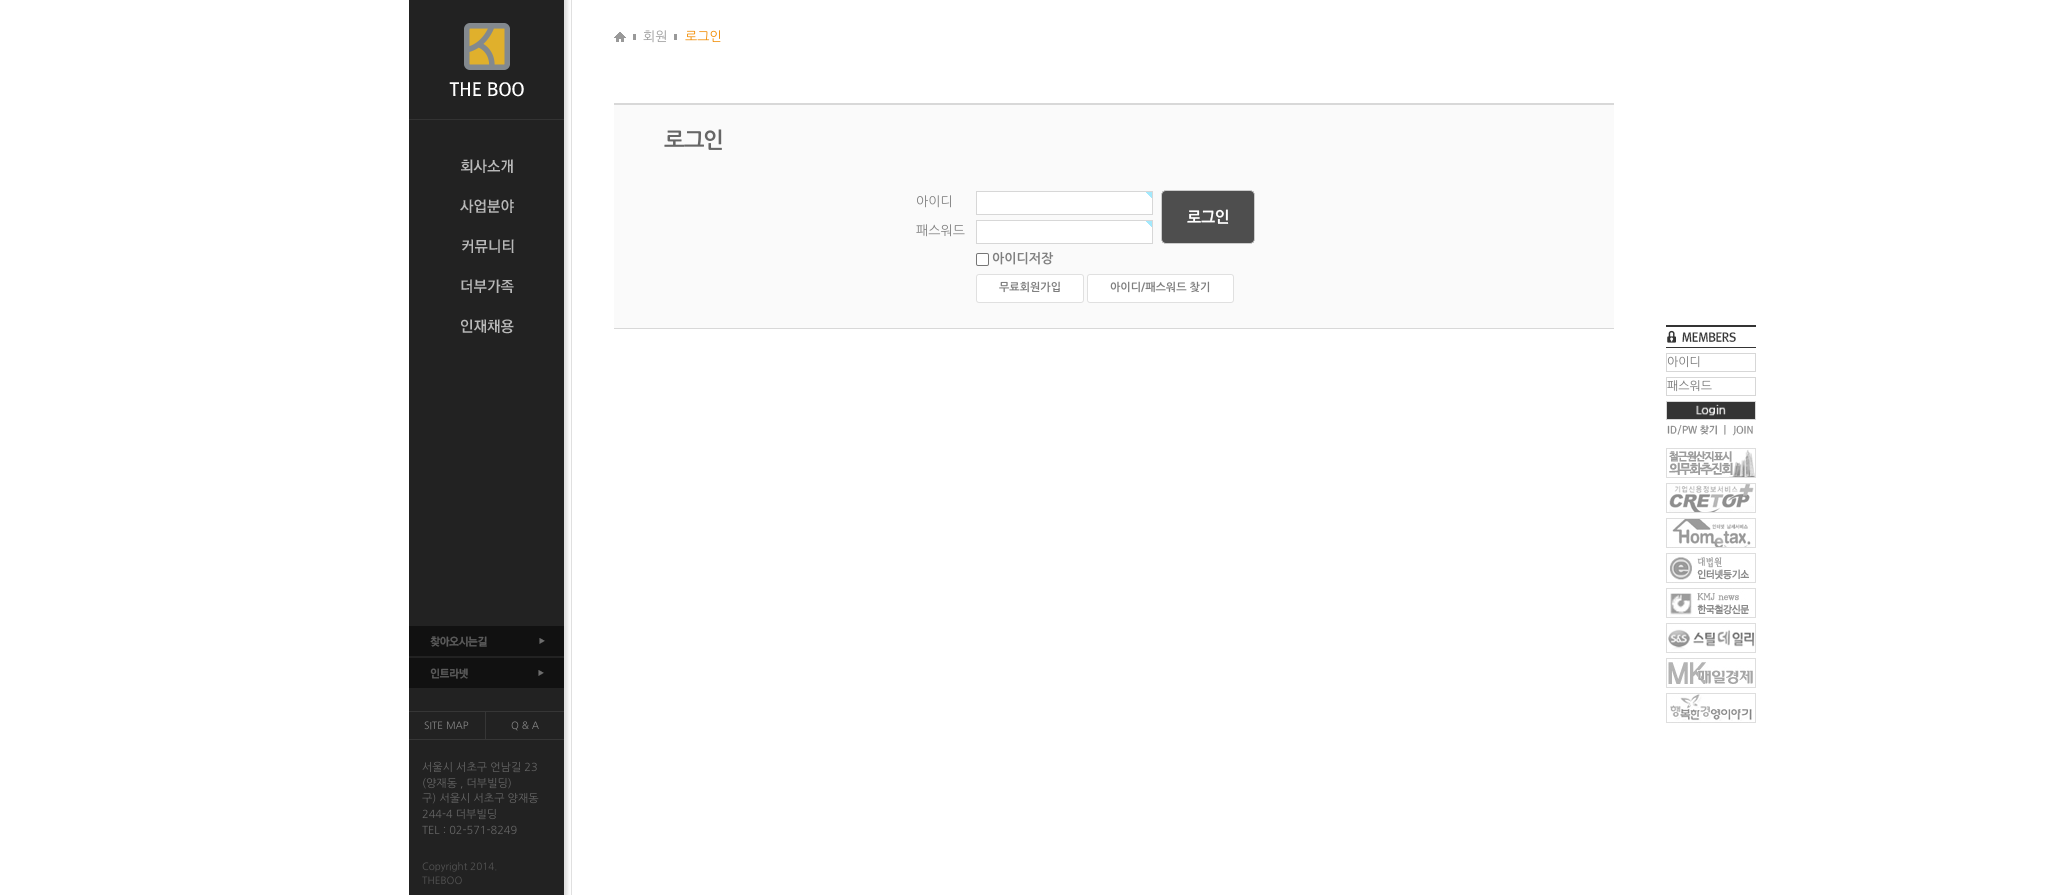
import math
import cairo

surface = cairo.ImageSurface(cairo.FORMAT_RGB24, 2072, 895)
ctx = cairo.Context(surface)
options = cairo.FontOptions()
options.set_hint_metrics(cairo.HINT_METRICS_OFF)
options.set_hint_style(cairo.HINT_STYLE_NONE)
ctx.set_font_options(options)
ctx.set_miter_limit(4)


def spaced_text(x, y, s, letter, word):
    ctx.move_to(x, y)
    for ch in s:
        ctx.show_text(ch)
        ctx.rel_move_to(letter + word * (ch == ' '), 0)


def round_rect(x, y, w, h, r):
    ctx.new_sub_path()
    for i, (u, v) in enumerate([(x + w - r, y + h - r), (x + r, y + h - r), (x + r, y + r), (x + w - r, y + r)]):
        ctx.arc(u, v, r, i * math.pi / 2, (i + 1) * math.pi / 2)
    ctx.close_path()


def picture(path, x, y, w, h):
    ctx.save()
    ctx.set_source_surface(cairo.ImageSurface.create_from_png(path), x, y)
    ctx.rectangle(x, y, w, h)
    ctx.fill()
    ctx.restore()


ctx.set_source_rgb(1, 1, 1)
ctx.paint()
picture("img1.png", 564, 0, 8, 895)
picture("img2.png", 614, 32, 12, 10)
ctx.set_source_rgb(0.6, 0.6, 0.6)
ctx.rectangle(633, 34, 3, 6)
ctx.fill()
ctx.select_font_face("NanumGothic")
ctx.set_font_size(13)
ctx.move_to(643, 41)
ctx.show_text("회원")
ctx.rectangle(674, 34, 3, 6)
ctx.fill()
ctx.set_source_rgb(0.945, 0.545, 0)
ctx.move_to(685, 41)
ctx.show_text("로그인")
ctx.set_source_rgb(0.98, 0.98, 0.98)
ctx.rectangle(614, 105, 1000, 223)
ctx.fill()
ctx.set_source_rgb(0.847, 0.847, 0.847)
ctx.rectangle(614, 103, 1000, 2)
ctx.fill()
ctx.rectangle(614, 328, 1000, 1)
ctx.fill()
ctx.select_font_face("NanumGothic", cairo.FONT_SLANT_NORMAL, cairo.FONT_WEIGHT_BOLD)
ctx.set_font_size(22)
ctx.set_source_rgb(0.4, 0.4, 0.4)
spaced_text(664, 148, "로그인", -1, 0)
ctx.select_font_face("NanumGothic")
ctx.set_font_size(13)
ctx.set_source_rgb(0.494, 0.494, 0.494)
ctx.move_to(916, 206)
ctx.show_text("아이디")
ctx.set_source_rgb(1, 1, 1)
ctx.rectangle(977, 192, 175, 22)
ctx.fill()
picture("img3.png", 1146, 192, 6, 6)
ctx.rectangle(976.5, 191.5, 176, 23)
ctx.set_source_rgb(0.843, 0.843, 0.843)
ctx.set_line_width(1)
ctx.stroke()
ctx.set_source_rgb(0.494, 0.494, 0.494)
ctx.move_to(916, 235)
ctx.show_text("패스워드")
ctx.set_source_rgb(1, 1, 1)
ctx.rectangle(977, 221, 175, 22)
ctx.fill()
picture("img3.png", 1146, 221, 6, 6)
ctx.rectangle(976.5, 220.5, 176, 23)
ctx.set_source_rgb(0.843, 0.843, 0.843)
ctx.stroke()
picture("img4.png", 1161, 190, 94, 54)
ctx.set_source_rgb(1, 1, 1)
round_rect(976.5, 253.5, 12, 12, 1.5)
ctx.fill_preserve()
ctx.set_source_rgb(0.463, 0.463, 0.463)
ctx.stroke()
ctx.select_font_face("NanumGothic", cairo.FONT_SLANT_NORMAL, cairo.FONT_WEIGHT_BOLD)
ctx.set_source_rgb(0.494, 0.494, 0.494)
ctx.move_to(992, 263)
ctx.show_text("아이디저장")
ctx.set_source_rgb(1, 1, 1)
round_rect(976.5, 274.5, 107, 28, 2.5)
ctx.fill_preserve()
ctx.set_source_rgb(0.878, 0.878, 0.878)
ctx.stroke()
ctx.set_font_size(11)
ctx.set_source_rgb(0.494, 0.494, 0.494)
ctx.move_to(999, 291)
ctx.show_text("무료회원가입")
ctx.set_source_rgb(1, 1, 1)
round_rect(1087.5, 274.5, 146, 28, 2.5)
ctx.fill_preserve()
ctx.set_source_rgb(0.878, 0.878, 0.878)
ctx.stroke()
ctx.set_source_rgb(0.494, 0.494, 0.494)
ctx.move_to(1110, 291)
ctx.show_text("아이디/패스워드 찾기")
ctx.set_source_rgb(0.133, 0.133, 0.133)
ctx.rectangle(409, 0, 155, 895)
ctx.fill()
picture("img5.png", 449, 23, 75, 74)
ctx.set_source_rgb(0.2, 0.2, 0.2)
ctx.rectangle(409, 119, 155, 1)
ctx.fill()
picture("img6.png", 461, 159, 52, 14)
picture("img7.png", 460, 199, 54, 14)
picture("img8.png", 462, 239, 52, 14)
picture("img9.png", 461, 279, 53, 14)
picture("img10.png", 461, 319, 53, 15)
picture("img11.png", 409, 626, 155, 30)
picture("img12.png", 409, 658, 155, 30)
ctx.set_source_rgb(0.212, 0.212, 0.212)
ctx.rectangle(409, 711, 155, 1)
ctx.fill()
ctx.rectangle(409, 739, 155, 1)
ctx.fill()
ctx.rectangle(485, 712, 1, 27)
ctx.fill()
ctx.select_font_face("NanumGothic")
ctx.set_font_size(10)
ctx.set_source_rgb(0.533, 0.533, 0.533)
ctx.move_to(424, 729)
ctx.show_text("SITE MAP")
ctx.move_to(511, 729)
ctx.show_text("Q & A")
ctx.set_font_size(11)
ctx.set_source_rgb(0.4, 0.4, 0.4)
ctx.move_to(422, 771)
ctx.show_text("서울시 서초구 언남길 23")
ctx.move_to(422, 787)
ctx.show_text("(양재동 , 더부빌딩)")
ctx.move_to(422, 802)
ctx.show_text("구) 서울시 서초구 양재동")
ctx.move_to(422, 818)
ctx.show_text("244-4 더부빌딩")
ctx.move_to(422, 834)
ctx.show_text("TEL : 02-571-8249")
ctx.set_font_size(10)
ctx.set_source_rgb(0.333, 0.333, 0.333)
ctx.move_to(422, 870)
ctx.show_text("Copyright 2014.")
ctx.move_to(422, 884)
ctx.show_text("THEBOO")
picture("img13.png", 1666, 325, 90, 23)
ctx.rectangle(1666.5, 353.5, 89, 18)
ctx.set_source_rgb(0.843, 0.843, 0.843)
ctx.stroke()
ctx.set_font_size(12)
ctx.set_source_rgb(0.459, 0.459, 0.459)
ctx.move_to(1667, 366)
ctx.show_text("아이디")
ctx.rectangle(1666.5, 377.5, 89, 18)
ctx.set_source_rgb(0.843, 0.843, 0.843)
ctx.stroke()
ctx.set_source_rgb(0.459, 0.459, 0.459)
ctx.move_to(1667, 390)
ctx.show_text("패스워드")
ctx.rectangle(1666.5, 401.5, 89, 18)
ctx.set_source_rgb(0.843, 0.843, 0.843)
ctx.stroke()
picture("img14.png", 1667, 402, 88, 17)
picture("img15.png", 1667, 425, 59, 10)
picture("img16.png", 1732, 425, 21, 11)
picture("img17.png", 1666, 448, 90, 30)
picture("img18.png", 1666, 483, 90, 30)
picture("img19.png", 1666, 518, 90, 30)
picture("img20.png", 1666, 553, 90, 30)
picture("img21.png", 1666, 588, 90, 30)
picture("img22.png", 1666, 623, 90, 30)
picture("img23.png", 1666, 658, 90, 30)
picture("img24.png", 1666, 693, 90, 30)
surface.write_to_png("page.png")
